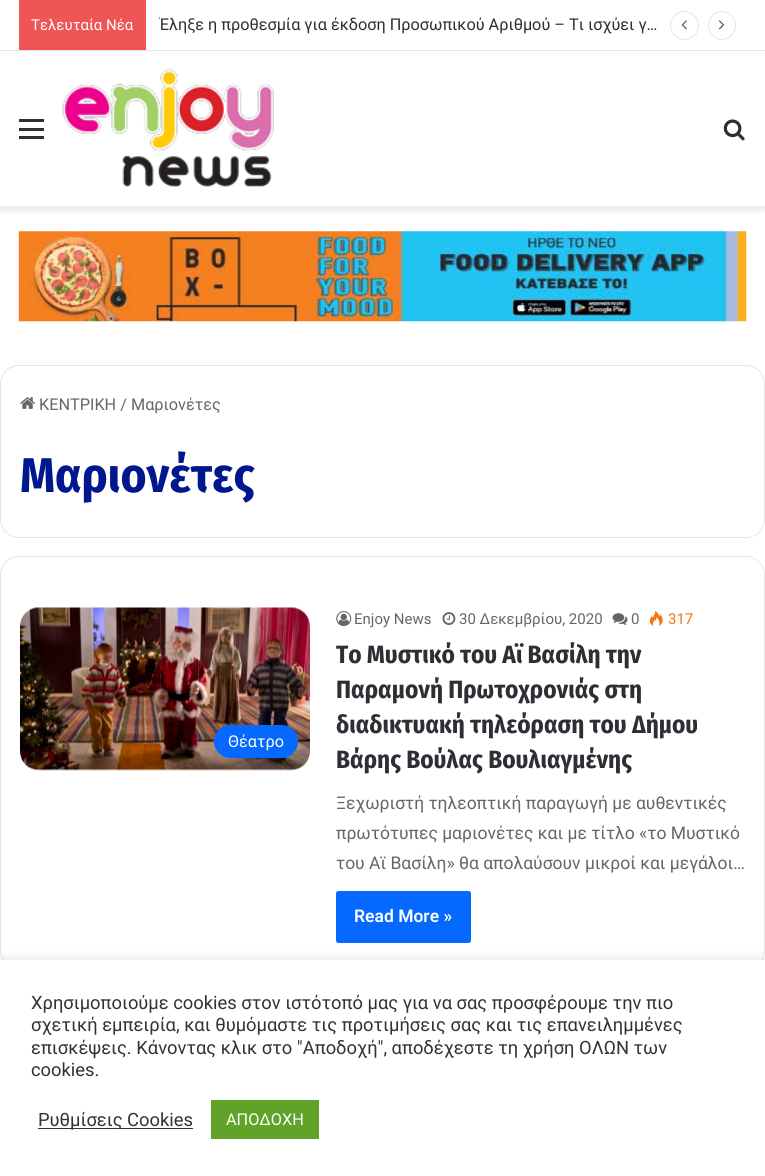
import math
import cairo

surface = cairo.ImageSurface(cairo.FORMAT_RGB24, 765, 1176)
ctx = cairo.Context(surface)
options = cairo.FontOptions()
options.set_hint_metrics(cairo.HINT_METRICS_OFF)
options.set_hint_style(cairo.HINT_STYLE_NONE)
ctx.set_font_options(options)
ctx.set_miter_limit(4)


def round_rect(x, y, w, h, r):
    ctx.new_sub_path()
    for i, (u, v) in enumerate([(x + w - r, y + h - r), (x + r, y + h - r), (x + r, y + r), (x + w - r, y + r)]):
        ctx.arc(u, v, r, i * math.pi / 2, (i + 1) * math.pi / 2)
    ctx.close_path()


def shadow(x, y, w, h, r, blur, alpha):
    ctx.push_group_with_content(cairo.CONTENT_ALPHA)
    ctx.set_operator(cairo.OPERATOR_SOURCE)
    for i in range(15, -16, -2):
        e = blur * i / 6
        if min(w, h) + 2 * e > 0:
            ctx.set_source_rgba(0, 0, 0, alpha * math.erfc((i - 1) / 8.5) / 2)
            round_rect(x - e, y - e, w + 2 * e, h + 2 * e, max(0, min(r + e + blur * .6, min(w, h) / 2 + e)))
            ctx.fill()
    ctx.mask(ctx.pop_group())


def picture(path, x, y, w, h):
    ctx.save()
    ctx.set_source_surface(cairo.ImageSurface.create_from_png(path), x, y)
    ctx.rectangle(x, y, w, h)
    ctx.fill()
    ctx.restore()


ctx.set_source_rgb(1, 1, 1)
ctx.paint()
ctx.save()
ctx.rectangle(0, 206, 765, 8)
ctx.clip()
ctx.set_source_rgb(0, 0, 0)
shadow(0, 55, 765, 155, 0, 4.5, 0.1)
ctx.restore()
ctx.set_source_rgb(1, 1, 1)
ctx.rectangle(6, 49, 753, 1)
ctx.fill()
ctx.set_source_rgb(0.902, 0.902, 0.902)
ctx.rectangle(0, 50, 765, 1)
ctx.fill()
ctx.set_source_rgb(0.941, 0.333, 0.333)
ctx.rectangle(19, 0, 127, 50)
ctx.fill()
ctx.select_font_face("Roboto")
ctx.set_font_size(15)
ctx.set_source_rgb(1, 1, 1)
ctx.move_to(31, 30)
ctx.show_text("Τελευταία Νέα")
ctx.save()
ctx.rectangle(159, 0, 500, 50)
ctx.clip()
ctx.set_font_size(16.25)
ctx.set_source_rgb(0.173, 0.184, 0.204)
ctx.move_to(159, 30)
ctx.show_text("Έληξε η προθεσμία για έκδοση Προσωπικού Αριθμού – Τι ισχύει γ…")
ctx.restore()
ctx.new_path()
ctx.arc(684.5, 25.5, 14, 0, 2 * math.pi)
ctx.set_source_rgb(0.902, 0.902, 0.902)
ctx.set_line_width(1)
ctx.stroke()
picture("img1.png", 681, 20, 6, 10)
round_rect(708.5, 11.5, 27, 28, 13.5)
ctx.stroke()
picture("img2.png", 718, 20, 7, 10)
ctx.set_source_rgb(0.173, 0.184, 0.204)
ctx.rectangle(19, 128, 25, 3)
ctx.fill()
ctx.rectangle(19, 119, 25, 3)
ctx.fill()
ctx.rectangle(19, 136, 25, 3)
ctx.fill()
picture("img3.png", 62, 68, 212, 119)
picture("img4.png", 723, 119, 22, 22)
picture("img5.png", 18, 231, 729, 91)
round_rect(0.5, 365.5, 764, 172, 18.5)
ctx.set_source_rgb(0.902, 0.902, 0.902)
ctx.stroke()
picture("img6.png", 20, 397, 15, 12)
ctx.set_font_size(16.25)
ctx.set_source_rgb(0.4, 0.4, 0.4)
ctx.move_to(39, 410)
ctx.show_text("ΚΕΝΤΡΙΚΗ / Μαριονέτες")
ctx.select_font_face("Fira Sans Condensed", cairo.FONT_SLANT_NORMAL, cairo.FONT_WEIGHT_BOLD)
ctx.set_font_size(48.75)
ctx.set_source_rgb(0, 0.09, 0.557)
ctx.move_to(20, 492)
ctx.show_text("Μαριονέτες")
round_rect(0.5, 556.5, 764, 412, 18.5)
ctx.set_source_rgb(0.902, 0.902, 0.902)
ctx.stroke()
picture("img7.png", 20, 607, 290, 164)
ctx.set_source_rgb(0.024, 0.412, 1)
round_rect(214, 725, 84, 33, 16.5)
ctx.fill()
ctx.select_font_face("Roboto")
ctx.set_font_size(16.25)
ctx.set_source_rgb(1, 1, 1)
ctx.move_to(228, 747)
ctx.show_text("Θέατρο")
picture("img8.png", 336, 611, 16, 16)
ctx.set_font_size(15)
ctx.set_source_rgb(0.4, 0.4, 0.4)
ctx.move_to(354, 624)
ctx.show_text("Enjoy News")
picture("img9.png", 442, 612, 14, 13)
ctx.move_to(459, 624)
ctx.show_text("30 Δεκεμβρίου, 2020")
picture("img10.png", 612, 613, 16, 12)
ctx.move_to(631, 624)
ctx.show_text("0")
picture("img11.png", 649, 611, 14, 15)
ctx.set_source_rgb(0.957, 0.459, 0.071)
ctx.move_to(668, 624)
ctx.show_text("317")
ctx.select_font_face("Fira Sans Condensed", cairo.FONT_SLANT_NORMAL, cairo.FONT_WEIGHT_BOLD)
ctx.set_font_size(25)
ctx.set_source_rgb(0.173, 0.184, 0.204)
ctx.move_to(336, 663)
ctx.show_text("Το Μυστικό του Αϊ Βασίλη την")
ctx.move_to(336, 698)
ctx.show_text("Παραμονή Πρωτοχρονιάς στη")
ctx.move_to(336, 733)
ctx.show_text("διαδικτυακή τηλεόραση του Δήμου")
ctx.move_to(336, 768)
ctx.show_text("Βάρης Βούλας Βουλιαγμένης")
ctx.select_font_face("Roboto")
ctx.set_font_size(17.5)
ctx.set_source_rgb(0.4, 0.4, 0.4)
ctx.move_to(336, 809)
ctx.show_text("Ξεχωριστή τηλεοπτική παραγωγή με αυθεντικές")
ctx.move_to(336, 839)
ctx.show_text("πρωτότυπες μαριονέτες και με τίτλο «το Μυστικό")
ctx.move_to(336, 869)
ctx.show_text("του Αϊ Βασίλη» θα απολαύσουν μικροί και μεγάλοι…")
ctx.set_source_rgb(0.024, 0.412, 1)
round_rect(336, 891, 135, 52, 2.5)
ctx.fill()
ctx.select_font_face("Roboto SemiBold")
ctx.set_source_rgb(1, 1, 1)
ctx.move_to(354, 922)
ctx.show_text("Read More »")
ctx.set_source_rgb(0.675, 0.671, 0.671)
shadow(0, 959, 765, 216, 0, 6, 0.3)
ctx.set_source_rgb(1, 1, 1)
ctx.rectangle(0, 960, 765, 216)
ctx.fill()
ctx.select_font_face("Roboto")
ctx.set_font_size(18.35)
ctx.set_source_rgb(0.2, 0.2, 0.2)
ctx.move_to(31, 1009)
ctx.show_text("Χρησιμοποιούμε cookies στον ιστότοπό μας για να σας προσφέρουμε την πιο")
ctx.move_to(31, 1031)
ctx.show_text("σχετική εμπειρία, και θυμόμαστε τις προτιμήσεις σας και τις επανειλημμένες")
ctx.move_to(31, 1054)
ctx.show_text("επισκέψεις. Κάνοντας κλικ στο \"Αποδοχή\", αποδέχεστε τη χρήση ΟΛΩΝ των")
ctx.move_to(31, 1076)
ctx.show_text("cookies.")
ctx.rectangle(38, 1128, 155, 1)
ctx.fill()
ctx.move_to(38, 1126)
ctx.show_text("Ρυθμίσεις Cookies")
ctx.set_source_rgb(0.38, 0.635, 0.161)
ctx.rectangle(211, 1100, 108, 39)
ctx.fill()
ctx.set_font_size(16.25)
ctx.set_source_rgb(1, 1, 1)
ctx.move_to(226, 1125)
ctx.show_text("ΑΠΟΔΟΧΗ")
surface.write_to_png("page.png")
